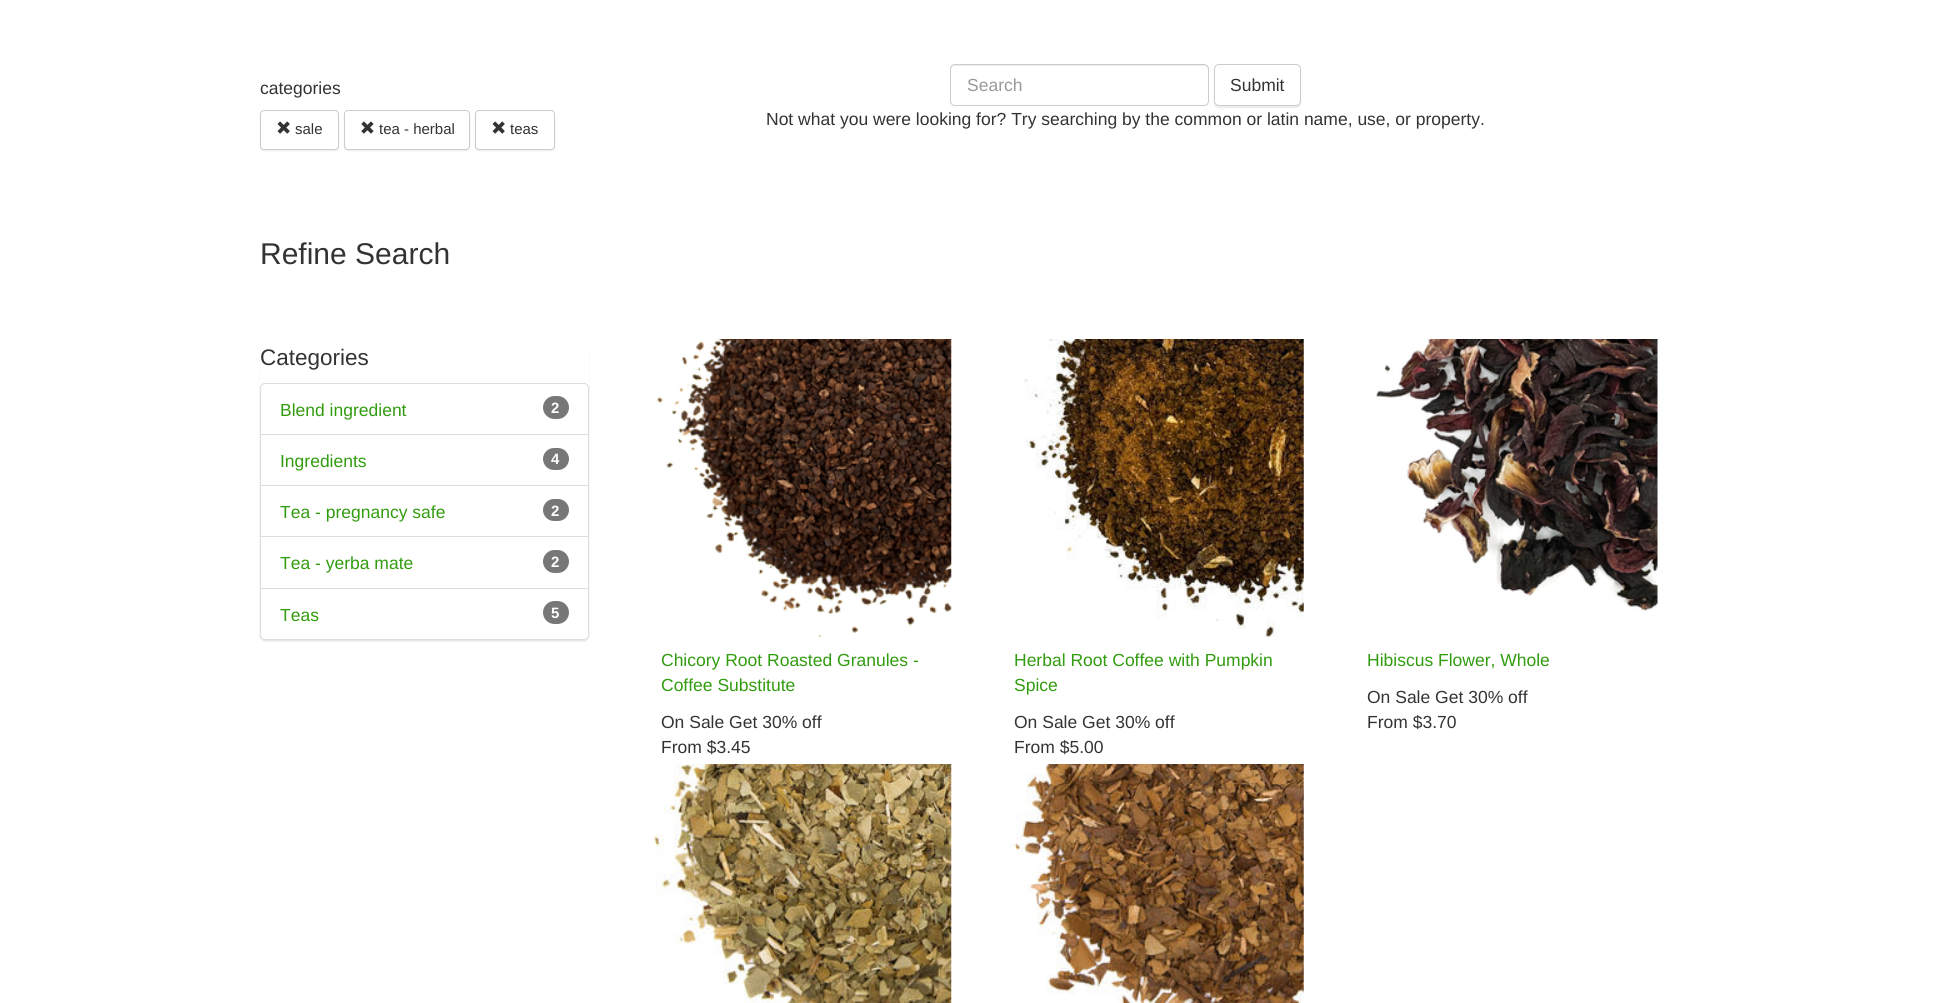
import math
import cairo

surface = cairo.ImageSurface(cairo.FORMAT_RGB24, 1944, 1003)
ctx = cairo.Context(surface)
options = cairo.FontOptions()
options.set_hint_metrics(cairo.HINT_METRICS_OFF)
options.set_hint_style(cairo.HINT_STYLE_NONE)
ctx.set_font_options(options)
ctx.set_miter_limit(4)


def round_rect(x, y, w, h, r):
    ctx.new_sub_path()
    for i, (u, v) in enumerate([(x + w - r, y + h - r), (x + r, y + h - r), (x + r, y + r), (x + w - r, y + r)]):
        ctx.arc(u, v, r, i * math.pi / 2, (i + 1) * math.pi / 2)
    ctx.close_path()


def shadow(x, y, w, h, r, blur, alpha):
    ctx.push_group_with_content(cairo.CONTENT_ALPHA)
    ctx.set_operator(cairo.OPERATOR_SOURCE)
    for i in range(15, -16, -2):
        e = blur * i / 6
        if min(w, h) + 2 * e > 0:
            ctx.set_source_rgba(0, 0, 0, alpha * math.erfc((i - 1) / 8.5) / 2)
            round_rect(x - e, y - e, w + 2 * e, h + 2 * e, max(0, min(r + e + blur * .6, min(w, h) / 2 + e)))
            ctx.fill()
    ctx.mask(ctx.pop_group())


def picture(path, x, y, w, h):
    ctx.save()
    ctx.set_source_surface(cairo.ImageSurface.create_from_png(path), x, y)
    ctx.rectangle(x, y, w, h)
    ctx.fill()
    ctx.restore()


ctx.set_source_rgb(1, 1, 1)
ctx.paint()
ctx.select_font_face("Liberation Sans")
ctx.set_font_size(17.5)
ctx.set_source_rgb(0.2, 0.2, 0.2)
ctx.move_to(260, 94)
ctx.show_text("categories")
ctx.set_source_rgb(0, 0, 0)
shadow(260, 111, 79, 40, 4, 0.5, 0.07)
ctx.set_source_rgb(1, 1, 1)
round_rect(260.5, 110.5, 78, 39, 3.5)
ctx.fill_preserve()
ctx.set_source_rgb(0.8, 0.8, 0.8)
ctx.set_line_width(1)
ctx.stroke()
picture("img1.png", 277, 121, 13, 13)
ctx.set_font_size(15)
ctx.set_source_rgb(0.2, 0.2, 0.2)
ctx.move_to(295, 134)
ctx.show_text("sale")
ctx.set_source_rgb(0, 0, 0)
shadow(344, 111, 126, 40, 4, 0.5, 0.07)
ctx.set_source_rgb(1, 1, 1)
round_rect(344.5, 110.5, 125, 39, 3.5)
ctx.fill_preserve()
ctx.set_source_rgb(0.8, 0.8, 0.8)
ctx.stroke()
picture("img2.png", 361, 121, 13, 13)
ctx.set_source_rgb(0.2, 0.2, 0.2)
ctx.move_to(379, 134)
ctx.show_text("tea - herbal")
ctx.set_source_rgb(0, 0, 0)
shadow(475, 111, 80, 40, 4, 0.5, 0.07)
ctx.set_source_rgb(1, 1, 1)
round_rect(475.5, 110.5, 79, 39, 3.5)
ctx.fill_preserve()
ctx.set_source_rgb(0.8, 0.8, 0.8)
ctx.stroke()
picture("img1.png", 492, 121, 13, 13)
ctx.set_source_rgb(0.2, 0.2, 0.2)
ctx.move_to(510, 134)
ctx.show_text("teas")
ctx.set_source_rgb(0.925, 0.925, 0.925)
ctx.new_path()
ctx.move_to(955, 66)
ctx.line_to(1205, 66)
ctx.line_to(1207, 68)
ctx.line_to(1208, 70)
ctx.line_to(1208, 69)
ctx.curve_to(1208, 67, 1206, 65, 1204, 65)
ctx.line_to(955, 65)
ctx.curve_to(953, 65, 951, 67, 951, 69)
ctx.line_to(951, 70)
ctx.curve_to(951, 68, 953, 66, 955, 66)
ctx.close_path()
ctx.fill()
round_rect(950.5, 64.5, 258, 41, 4.5)
ctx.set_source_rgb(0.8, 0.8, 0.8)
ctx.stroke()
ctx.set_font_size(17.5)
ctx.set_source_rgb(0.6, 0.6, 0.6)
ctx.move_to(967, 91)
ctx.show_text("Search")
ctx.set_source_rgb(0, 0, 0)
shadow(1214, 65, 87, 43, 5, 0.5, 0.07)
ctx.set_source_rgb(1, 1, 1)
round_rect(1214.5, 64.5, 86, 41, 4.5)
ctx.fill_preserve()
ctx.set_source_rgb(0.8, 0.8, 0.8)
ctx.stroke()
ctx.set_source_rgb(0.2, 0.2, 0.2)
ctx.move_to(1230, 91)
ctx.show_text("Submit")
ctx.move_to(766, 125)
ctx.show_text("Not what you were looking for? Try searching by the common or latin name, use, or property.")
ctx.set_font_size(30)
ctx.move_to(260, 264)
ctx.show_text("Refine Search")
ctx.save()
ctx.set_fill_rule(cairo.FILL_RULE_EVEN_ODD)
ctx.new_path()
ctx.move_to(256, 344)
ctx.line_to(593, 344)
ctx.line_to(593, 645)
ctx.line_to(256, 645)
ctx.close_path()
ctx.move_to(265, 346)
ctx.line_to(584, 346)
ctx.curve_to(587, 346, 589, 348, 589, 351)
ctx.line_to(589, 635)
ctx.curve_to(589, 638, 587, 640, 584, 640)
ctx.line_to(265, 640)
ctx.curve_to(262, 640, 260, 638, 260, 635)
ctx.line_to(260, 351)
ctx.curve_to(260, 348, 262, 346, 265, 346)
ctx.close_path()
ctx.clip()
ctx.set_source_rgb(0, 0, 0)
shadow(260, 348, 329, 293, 5, 1, 0.07)
ctx.restore()
ctx.set_font_size(22.5)
ctx.move_to(260, 365)
ctx.show_text("Categories")
ctx.set_source_rgb(0, 0, 0)
shadow(260, 384, 329, 257, 5, 1, 0.07)
ctx.set_source_rgb(1, 1, 1)
ctx.new_path()
ctx.move_to(265, 383.5)
ctx.line_to(584, 383.5)
ctx.curve_to(586.5, 383.5, 588.5, 385.5, 588.5, 388)
ctx.line_to(588.5, 434.5)
ctx.line_to(260.5, 434.5)
ctx.line_to(260.5, 388)
ctx.curve_to(260.5, 385.5, 262.5, 383.5, 265, 383.5)
ctx.close_path()
ctx.fill_preserve()
ctx.set_source_rgb(0.867, 0.867, 0.867)
ctx.stroke()
ctx.set_font_size(17.5)
ctx.set_source_rgb(0.192, 0.612, 0.055)
ctx.move_to(280, 416)
ctx.show_text("Blend ingredient")
ctx.set_source_rgb(0.467, 0.467, 0.467)
round_rect(543, 396, 26, 23, 11.5)
ctx.fill()
ctx.select_font_face("Liberation Sans", cairo.FONT_SLANT_NORMAL, cairo.FONT_WEIGHT_BOLD)
ctx.set_font_size(15)
ctx.set_source_rgb(1, 1, 1)
ctx.move_to(551, 413)
ctx.show_text("2")
ctx.rectangle(260.5, 434.5, 328, 51)
ctx.fill_preserve()
ctx.set_source_rgb(0.867, 0.867, 0.867)
ctx.stroke()
ctx.select_font_face("Liberation Sans")
ctx.set_font_size(17.5)
ctx.set_source_rgb(0.192, 0.612, 0.055)
ctx.move_to(280, 467)
ctx.show_text("Ingredients")
ctx.set_source_rgb(0.467, 0.467, 0.467)
round_rect(543, 448, 26, 22, 11)
ctx.fill()
ctx.select_font_face("Liberation Sans", cairo.FONT_SLANT_NORMAL, cairo.FONT_WEIGHT_BOLD)
ctx.set_font_size(15)
ctx.set_source_rgb(1, 1, 1)
ctx.move_to(551, 464)
ctx.show_text("4")
ctx.rectangle(261, 486, 327, 50)
ctx.fill()
ctx.rectangle(260.5, 485.5, 328, 52)
ctx.set_source_rgb(0.867, 0.867, 0.867)
ctx.stroke()
ctx.select_font_face("Liberation Sans")
ctx.set_font_size(17.5)
ctx.set_source_rgb(0.192, 0.612, 0.055)
ctx.move_to(280, 518)
ctx.show_text("Tea - pregnancy safe")
ctx.set_source_rgb(0.467, 0.467, 0.467)
round_rect(543, 499, 26, 22, 11)
ctx.fill()
ctx.select_font_face("Liberation Sans", cairo.FONT_SLANT_NORMAL, cairo.FONT_WEIGHT_BOLD)
ctx.set_font_size(15)
ctx.set_source_rgb(1, 1, 1)
ctx.move_to(551, 516)
ctx.show_text("2")
ctx.rectangle(260.5, 536.5, 328, 52)
ctx.fill_preserve()
ctx.set_source_rgb(0.867, 0.867, 0.867)
ctx.stroke()
ctx.select_font_face("Liberation Sans")
ctx.set_font_size(17.5)
ctx.set_source_rgb(0.192, 0.612, 0.055)
ctx.move_to(280, 569)
ctx.show_text("Tea - yerba mate")
ctx.set_source_rgb(0.467, 0.467, 0.467)
round_rect(543, 550, 26, 23, 11.5)
ctx.fill()
ctx.select_font_face("Liberation Sans", cairo.FONT_SLANT_NORMAL, cairo.FONT_WEIGHT_BOLD)
ctx.set_font_size(15)
ctx.set_source_rgb(1, 1, 1)
ctx.move_to(551, 567)
ctx.show_text("2")
ctx.new_path()
ctx.move_to(260.5, 588.5)
ctx.line_to(588.5, 588.5)
ctx.line_to(588.5, 635)
ctx.curve_to(588.5, 637.5, 586.5, 639.5, 584, 639.5)
ctx.line_to(265, 639.5)
ctx.curve_to(262.5, 639.5, 260.5, 637.5, 260.5, 635)
ctx.close_path()
ctx.fill_preserve()
ctx.set_source_rgb(0.867, 0.867, 0.867)
ctx.stroke()
ctx.select_font_face("Liberation Sans")
ctx.set_font_size(17.5)
ctx.set_source_rgb(0.192, 0.612, 0.055)
ctx.move_to(280, 621)
ctx.show_text("Teas")
ctx.set_source_rgb(0.467, 0.467, 0.467)
round_rect(543, 601, 26, 23, 11.5)
ctx.fill()
ctx.select_font_face("Liberation Sans", cairo.FONT_SLANT_NORMAL, cairo.FONT_WEIGHT_BOLD)
ctx.set_font_size(15)
ctx.set_source_rgb(1, 1, 1)
ctx.move_to(551, 618)
ctx.show_text("5")
picture("img3.png", 657, 339, 295, 298)
ctx.select_font_face("Liberation Sans")
ctx.set_font_size(17.5)
ctx.set_source_rgb(0.192, 0.612, 0.055)
ctx.move_to(661, 666)
ctx.show_text("Chicory Root Roasted Granules -")
ctx.move_to(661, 691)
ctx.show_text("Coffee Substitute")
ctx.set_source_rgb(0.2, 0.2, 0.2)
ctx.move_to(661, 728)
ctx.show_text("On Sale Get 30% off")
ctx.move_to(661, 753)
ctx.show_text("From $3.45")
picture("img4.png", 1024, 339, 280, 298)
ctx.set_source_rgb(0.192, 0.612, 0.055)
ctx.move_to(1014, 666)
ctx.show_text("Herbal Root Coffee with Pumpkin")
ctx.move_to(1014, 691)
ctx.show_text("Spice")
ctx.set_source_rgb(0.2, 0.2, 0.2)
ctx.move_to(1014, 728)
ctx.show_text("On Sale Get 30% off")
ctx.move_to(1014, 753)
ctx.show_text("From $5.00")
picture("img5.png", 1376, 339, 282, 272)
ctx.set_source_rgb(0.192, 0.612, 0.055)
ctx.move_to(1367, 666)
ctx.show_text("Hibiscus Flower, Whole")
ctx.set_source_rgb(0.2, 0.2, 0.2)
ctx.move_to(1367, 703)
ctx.show_text("On Sale Get 30% off")
ctx.move_to(1367, 728)
ctx.show_text("From $3.70")
picture("img6.png", 653, 764, 299, 239)
picture("img7.png", 1006, 764, 298, 239)
surface.write_to_png("page.png")
